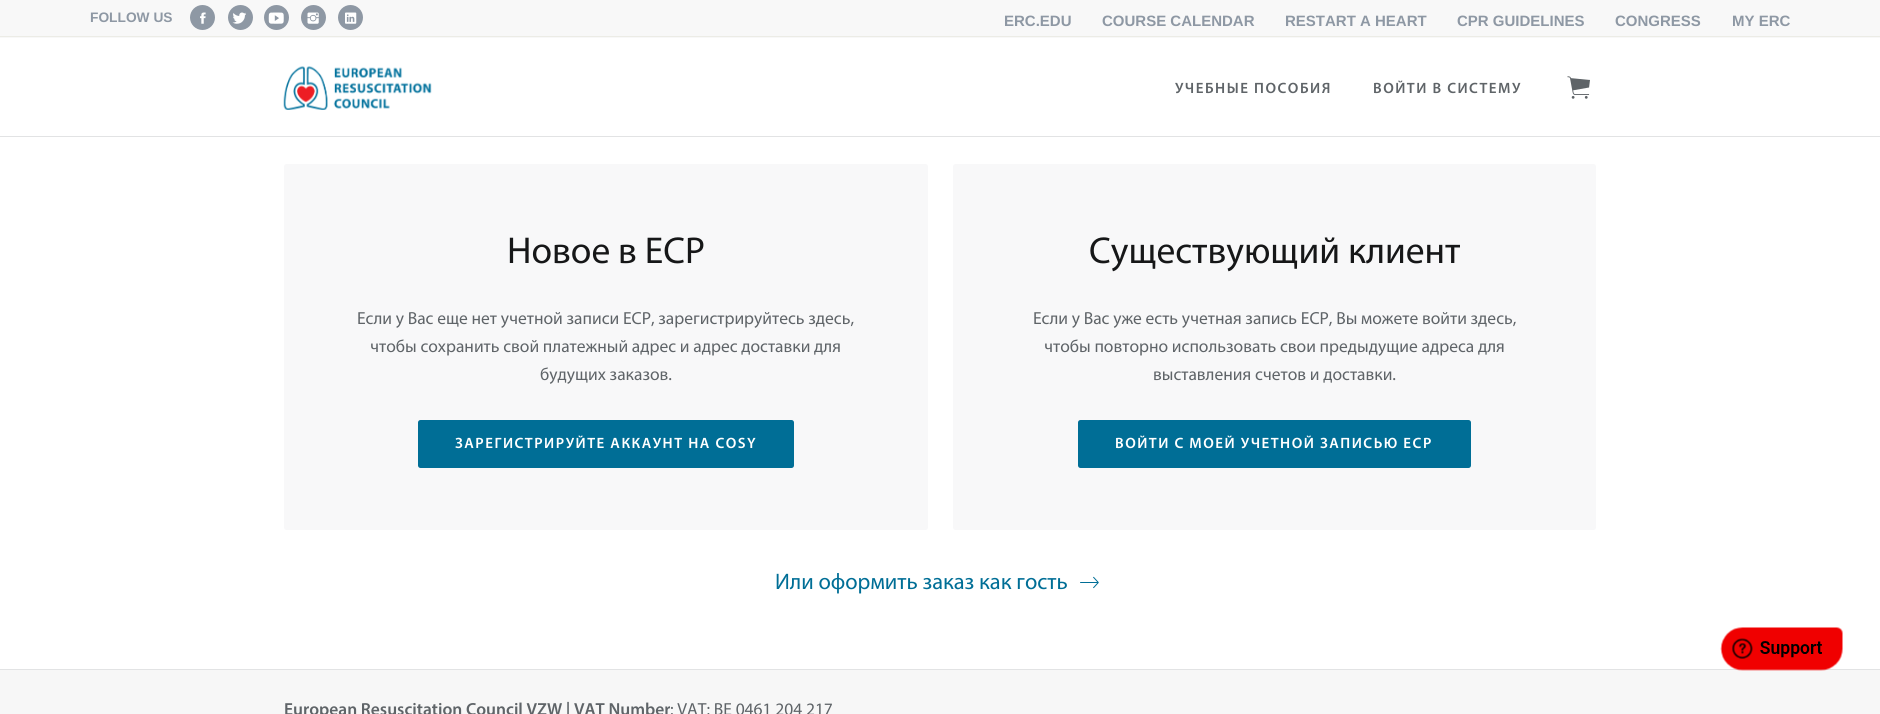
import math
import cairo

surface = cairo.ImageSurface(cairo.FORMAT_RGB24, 1880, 714)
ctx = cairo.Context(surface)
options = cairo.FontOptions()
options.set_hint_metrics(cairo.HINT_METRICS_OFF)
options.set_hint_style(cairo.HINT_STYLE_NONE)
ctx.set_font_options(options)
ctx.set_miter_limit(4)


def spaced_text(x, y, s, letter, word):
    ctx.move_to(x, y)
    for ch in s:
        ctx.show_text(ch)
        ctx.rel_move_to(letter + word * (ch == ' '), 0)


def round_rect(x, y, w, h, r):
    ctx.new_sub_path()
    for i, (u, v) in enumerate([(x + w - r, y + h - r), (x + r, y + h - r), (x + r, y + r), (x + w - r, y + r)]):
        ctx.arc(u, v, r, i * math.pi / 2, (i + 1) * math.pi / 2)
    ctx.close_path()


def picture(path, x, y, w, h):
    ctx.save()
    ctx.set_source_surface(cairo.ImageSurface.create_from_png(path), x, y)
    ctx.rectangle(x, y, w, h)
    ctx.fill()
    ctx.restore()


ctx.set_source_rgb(1, 1, 1)
ctx.paint()
ctx.set_source_rgb(0.969, 0.969, 0.969)
ctx.rectangle(0, 0, 1880, 38)
ctx.fill()
ctx.set_source_rgb(0.922, 0.922, 0.902)
ctx.rectangle(0, 36, 1880, 1)
ctx.fill()
ctx.select_font_face("Liberation Sans", cairo.FONT_SLANT_NORMAL, cairo.FONT_WEIGHT_BOLD)
ctx.set_font_size(13.75)
ctx.set_source_rgb(0.557, 0.596, 0.643)
ctx.move_to(90, 22)
ctx.show_text("FOLLOW US")
ctx.new_path()
ctx.arc(202.5, 17.5, 12.5, 0, 2 * math.pi)
ctx.fill()
picture("img1.png", 200, 12, 6, 12)
ctx.arc(240.5, 17.5, 12.5, 0, 2 * math.pi)
ctx.fill()
picture("img2.png", 232, 12, 14, 12)
ctx.arc(276.5, 17.5, 12.5, 0, 2 * math.pi)
ctx.fill()
picture("img3.png", 268, 12, 16, 12)
ctx.arc(313.5, 17.5, 12.5, 0, 2 * math.pi)
ctx.fill()
picture("img4.png", 307, 12, 12, 12)
ctx.arc(350.5, 17.5, 12.5, 0, 2 * math.pi)
ctx.fill()
picture("img5.png", 345, 12, 12, 12)
ctx.set_font_size(15)
ctx.move_to(1004, 26)
ctx.show_text("ERC.EDU")
ctx.move_to(1102, 26)
ctx.show_text("COURSE CALENDAR")
ctx.move_to(1285, 26)
ctx.show_text("RESTART A HEART")
ctx.move_to(1457, 26)
ctx.show_text("CPR GUIDELINES")
ctx.move_to(1615, 26)
ctx.show_text("CONGRESS")
ctx.move_to(1732, 26)
ctx.show_text("MY ERC")
ctx.set_source_rgb(0.886, 0.89, 0.894)
ctx.rectangle(0, 136, 1880, 1)
ctx.fill()
picture("img6.png", 283, 66, 149, 44)
ctx.select_font_face("Myriad SemiBold")
ctx.set_source_rgb(0.373, 0.392, 0.408)
spaced_text(1175, 93, "УЧЕБНЫЕ ПОСОБИЯ", 1.5, 0)
spaced_text(1373, 93, "ВОЙТИ В СИСТЕМУ", 1.5, 0)
picture("img7.png", 1567, 76, 23, 23)
ctx.set_source_rgb(0.969, 0.969, 0.973)
round_rect(284, 164, 644, 366, 2.5)
ctx.fill()
ctx.select_font_face("Myriad")
ctx.set_font_size(37.5)
ctx.set_source_rgb(0.086, 0.09, 0.094)
ctx.move_to(507, 263)
ctx.show_text("Новое в ЕСР")
ctx.set_font_size(17.5)
ctx.set_source_rgb(0.373, 0.392, 0.408)
ctx.move_to(357, 324)
ctx.show_text("Если у Вас еще нет учетной записи ЕСР, зарегистрируйтесь здесь,")
ctx.move_to(370, 352)
ctx.show_text("чтобы сохранить свой платежный адрес и адрес доставки для")
ctx.move_to(540, 380)
ctx.show_text("будущих заказов.")
ctx.set_source_rgb(0, 0.431, 0.588)
round_rect(418, 420, 376, 48, 2.5)
ctx.fill()
ctx.select_font_face("Myriad SemiBold")
ctx.set_font_size(15)
ctx.set_source_rgb(1, 1, 1)
spaced_text(455, 448, "ЗАРЕГИСТРИРУЙТЕ АККАУНТ НА COSY", 1.5, 0)
ctx.set_source_rgb(0.969, 0.969, 0.973)
round_rect(953, 164, 643, 366, 2.5)
ctx.fill()
ctx.select_font_face("Myriad")
ctx.set_font_size(37.5)
ctx.set_source_rgb(0.086, 0.09, 0.094)
ctx.move_to(1089, 263)
ctx.show_text("Существующий клиент")
ctx.set_font_size(17.5)
ctx.set_source_rgb(0.373, 0.392, 0.408)
ctx.move_to(1033, 324)
ctx.show_text("Если у Вас уже есть учетная запись ЕСР, Вы можете войти здесь,")
ctx.move_to(1044, 352)
ctx.show_text("чтобы повторно использовать свои предыдущие адреса для")
ctx.move_to(1153, 380)
ctx.show_text("выставления счетов и доставки.")
ctx.set_source_rgb(0, 0.431, 0.588)
round_rect(1078, 420, 393, 48, 2.5)
ctx.fill()
ctx.select_font_face("Myriad SemiBold")
ctx.set_font_size(15)
ctx.set_source_rgb(1, 1, 1)
spaced_text(1115, 448, "ВОЙТИ С МОЕЙ УЧЕТНОЙ ЗАПИСЬЮ ЕСР", 1.5, 0)
ctx.select_font_face("Myriad")
ctx.set_font_size(22.5)
ctx.set_source_rgb(0, 0.431, 0.588)
ctx.move_to(775, 589)
ctx.show_text("Или оформить заказ как гость")
picture("img8.png", 1080, 576, 19, 13)
ctx.set_source_rgb(0.965, 0.965, 0.965)
ctx.rectangle(0, 670, 1880, 44)
ctx.fill()
ctx.set_source_rgb(0.886, 0.89, 0.894)
ctx.rectangle(0, 669, 1880, 1)
ctx.fill()
picture("img9.png", 1720, 627, 123, 44)
ctx.select_font_face("Myriad SemiBold")
ctx.set_font_size(17.5)
ctx.set_source_rgb(0.373, 0.392, 0.408)
ctx.move_to(284, 715)
ctx.show_text("European Resuscitation Council VZW | VAT Number")
ctx.select_font_face("Myriad")
ctx.move_to(670, 715)
ctx.show_text(": VAT: BE 0461 204 217")
surface.write_to_png("page.png")
